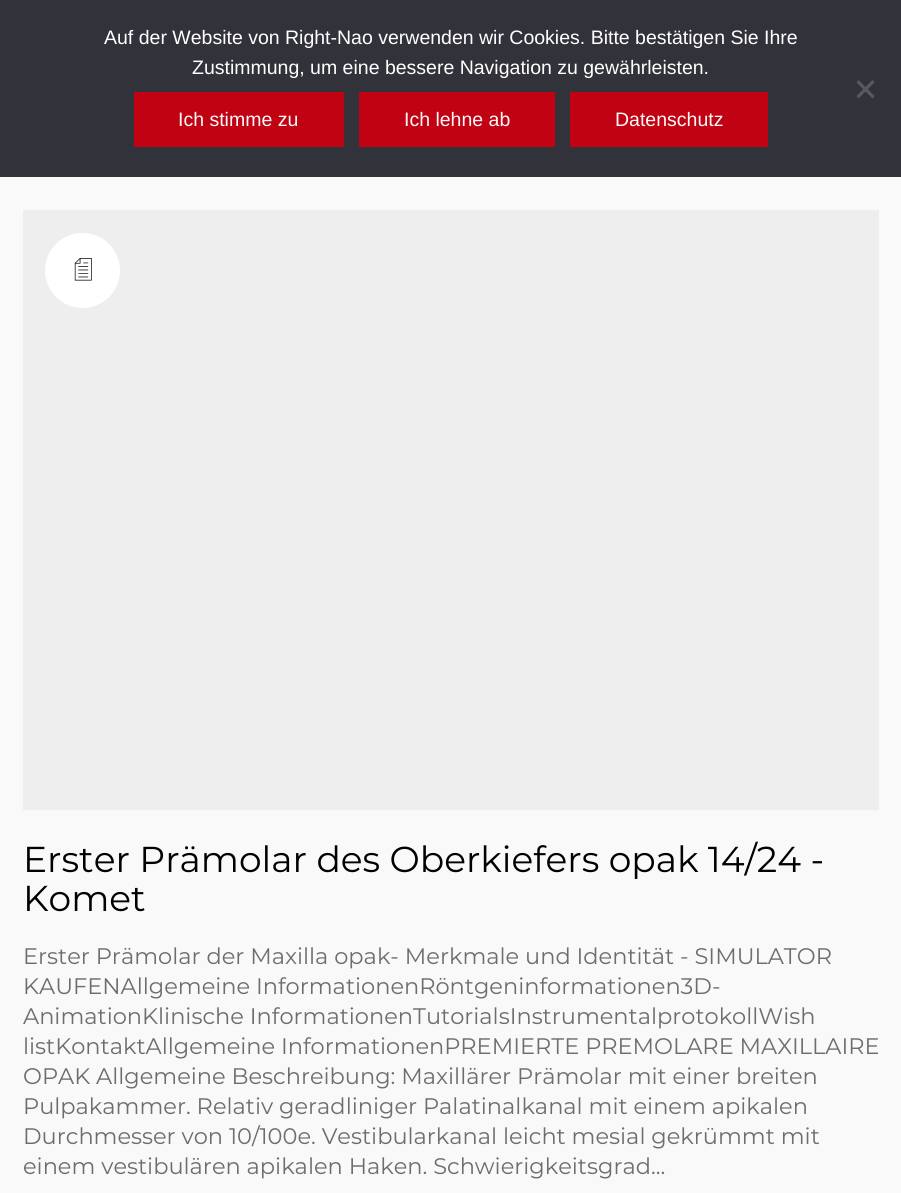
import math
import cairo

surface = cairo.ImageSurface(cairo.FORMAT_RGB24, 901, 1193)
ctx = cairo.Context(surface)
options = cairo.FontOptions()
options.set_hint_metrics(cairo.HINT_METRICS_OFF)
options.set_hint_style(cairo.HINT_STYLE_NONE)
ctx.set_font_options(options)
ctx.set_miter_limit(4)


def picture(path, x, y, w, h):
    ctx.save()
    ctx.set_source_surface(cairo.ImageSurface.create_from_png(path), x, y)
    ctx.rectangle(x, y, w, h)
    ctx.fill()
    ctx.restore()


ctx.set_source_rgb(0.976, 0.976, 0.976)
ctx.paint()
ctx.set_source_rgb(0.196, 0.196, 0.227)
ctx.rectangle(0, 0, 901, 177)
ctx.fill()
ctx.select_font_face("Liberation Sans")
ctx.set_font_size(19.5)
ctx.set_source_rgb(1, 1, 1)
ctx.move_to(104, 44)
ctx.show_text("Auf der Website von Right-Nao verwenden wir Cookies. Bitte bestätigen Sie Ihre")
ctx.move_to(192, 74)
ctx.show_text("Zustimmung, um eine bessere Navigation zu gewährleisten.")
ctx.set_source_rgb(0.349, 0.349, 0.365)
ctx.new_path()
ctx.move_to(872.5, 80)
ctx.line_to(874.5, 82.5)
ctx.line_to(858.5, 98.5)
ctx.line_to(856.5, 96)
ctx.close_path()
ctx.fill()
ctx.new_path()
ctx.move_to(856.5, 82.5)
ctx.line_to(858.5, 80)
ctx.line_to(874.5, 96)
ctx.line_to(872.5, 98.5)
ctx.close_path()
ctx.fill()
ctx.set_source_rgb(0.757, 0.008, 0.078)
ctx.rectangle(134, 92, 210, 55)
ctx.fill()
ctx.set_source_rgb(0.976, 0.976, 0.976)
ctx.move_to(178, 126)
ctx.show_text("Ich stimme zu")
ctx.set_source_rgb(0.757, 0.008, 0.078)
ctx.rectangle(359, 92, 196, 55)
ctx.fill()
ctx.set_source_rgb(0.976, 0.976, 0.976)
ctx.move_to(404, 126)
ctx.show_text("Ich lehne ab")
ctx.set_source_rgb(0.757, 0.008, 0.078)
ctx.rectangle(570, 92, 198, 55)
ctx.fill()
ctx.set_source_rgb(0.976, 0.976, 0.976)
ctx.move_to(615, 126)
ctx.show_text("Datenschutz")
ctx.set_source_rgb(0.933, 0.933, 0.933)
ctx.rectangle(23, 210, 856, 600)
ctx.fill()
ctx.set_source_rgb(1, 1, 1)
ctx.arc(82.5, 270.5, 37.5, 0, 2 * math.pi)
ctx.fill()
picture("img1.png", 74, 258, 18, 23)
ctx.select_font_face("Montserrat")
ctx.set_font_size(36)
ctx.set_source_rgb(0, 0, 0)
ctx.move_to(23, 872)
ctx.show_text("Erster Prämolar des Oberkiefers opak 14/24 -")
ctx.move_to(23, 911)
ctx.show_text("Komet")
ctx.set_font_size(22.5)
ctx.set_source_rgb(0.427, 0.427, 0.427)
ctx.move_to(23, 964)
ctx.show_text("Erster Prämolar der Maxilla opak- Merkmale und Identität - SIMULATOR")
ctx.move_to(23, 994)
ctx.show_text("KAUFENAllgemeine InformationenRöntgeninformationen3D-")
ctx.move_to(23, 1024)
ctx.show_text("AnimationKlinische InformationenTutorialsInstrumentalprotokollWish")
ctx.move_to(23, 1054)
ctx.show_text("listKontaktAllgemeine InformationenPREMIERTE PREMOLARE MAXILLAIRE")
ctx.move_to(23, 1084)
ctx.show_text("OPAK Allgemeine Beschreibung: Maxillärer Prämolar mit einer breiten")
ctx.move_to(23, 1114)
ctx.show_text("Pulpakammer. Relativ geradliniger Palatinalkanal mit einem apikalen")
ctx.move_to(23, 1144)
ctx.show_text("Durchmesser von 10/100e. Vestibularkanal leicht mesial gekrümmt mit")
ctx.move_to(23, 1174)
ctx.show_text("einem vestibulären apikalen Haken. Schwierigkeitsgrad...")
surface.write_to_png("page.png")
